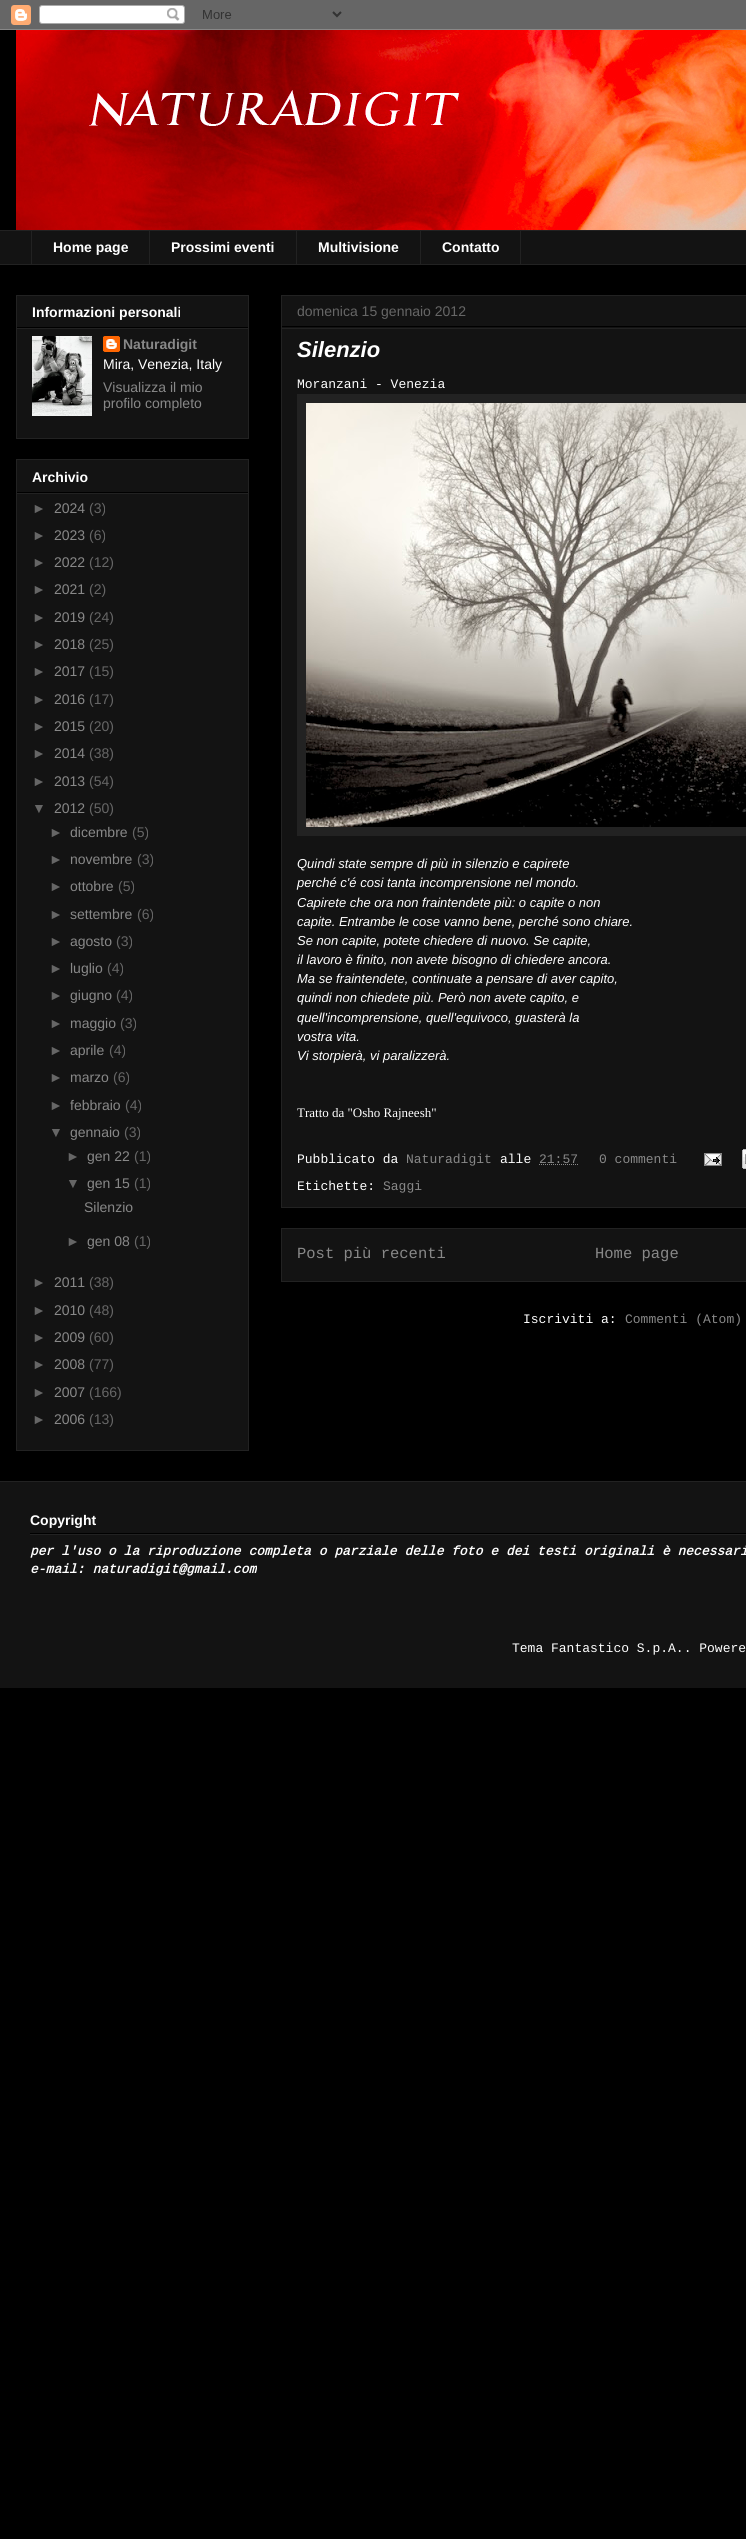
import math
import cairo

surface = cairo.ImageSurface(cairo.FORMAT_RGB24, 746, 2539)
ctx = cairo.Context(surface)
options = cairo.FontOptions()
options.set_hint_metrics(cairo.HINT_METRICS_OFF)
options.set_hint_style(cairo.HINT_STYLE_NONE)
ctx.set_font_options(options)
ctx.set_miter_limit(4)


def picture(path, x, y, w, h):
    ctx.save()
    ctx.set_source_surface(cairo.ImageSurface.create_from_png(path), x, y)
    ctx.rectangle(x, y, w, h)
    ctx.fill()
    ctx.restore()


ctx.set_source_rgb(0, 0, 0)
ctx.paint()
picture("img1.png", 0, 0, 746, 30)
picture("img2.png", 16, 30, 730, 200)
ctx.set_source_rgb(0.078, 0.078, 0.078)
ctx.rectangle(0, 231, 746, 33)
ctx.fill()
ctx.set_source_rgb(0.133, 0.133, 0.133)
ctx.rectangle(0, 230, 746, 1)
ctx.fill()
ctx.rectangle(31, 230, 1, 35)
ctx.fill()
ctx.select_font_face("Liberation Sans", cairo.FONT_SLANT_NORMAL, cairo.FONT_WEIGHT_BOLD)
ctx.set_font_size(14)
ctx.set_source_rgb(1, 1, 1)
ctx.move_to(53, 252)
ctx.show_text("Home page")
ctx.set_source_rgb(0.133, 0.133, 0.133)
ctx.rectangle(149, 230, 1, 35)
ctx.fill()
ctx.set_source_rgb(1, 1, 1)
ctx.move_to(171, 252)
ctx.show_text("Prossimi eventi")
ctx.set_source_rgb(0.133, 0.133, 0.133)
ctx.rectangle(296, 230, 1, 35)
ctx.fill()
ctx.set_source_rgb(1, 1, 1)
ctx.move_to(318, 252)
ctx.show_text("Multivisione")
ctx.rectangle(420.5, 230.5, 100, 34)
ctx.set_source_rgb(0.133, 0.133, 0.133)
ctx.set_line_width(1)
ctx.stroke()
ctx.set_source_rgb(1, 1, 1)
ctx.move_to(442, 252)
ctx.show_text("Contatto")
ctx.set_source_rgb(0.133, 0.133, 0.133)
ctx.rectangle(0, 264, 746, 1)
ctx.fill()
ctx.set_source_rgb(0.078, 0.078, 0.078)
ctx.rectangle(16.5, 295.5, 232, 143)
ctx.fill_preserve()
ctx.set_source_rgb(0.133, 0.133, 0.133)
ctx.stroke()
ctx.set_source_rgb(0, 0, 0)
ctx.rectangle(17, 327, 231, 1)
ctx.fill()
ctx.set_source_rgb(1, 1, 1)
ctx.move_to(32, 317)
ctx.show_text("Informazioni personali")
ctx.set_source_rgb(0.133, 0.133, 0.133)
ctx.rectangle(17, 328, 231, 1)
ctx.fill()
picture("img3.png", 32, 336, 60, 80)
picture("img4.png", 103, 336, 17, 16)
ctx.set_source_rgb(0.533, 0.533, 0.533)
ctx.move_to(123, 349)
ctx.show_text("Naturadigit")
ctx.select_font_face("Liberation Sans")
ctx.set_source_rgb(1, 1, 1)
ctx.move_to(103, 369)
ctx.show_text("Mira, Venezia, Italy")
ctx.set_source_rgb(0.533, 0.533, 0.533)
ctx.move_to(103, 392)
ctx.show_text("Visualizza il mio")
ctx.move_to(103, 408)
ctx.show_text("profilo completo")
ctx.set_source_rgb(0.078, 0.078, 0.078)
ctx.rectangle(16.5, 459.5, 232, 991)
ctx.fill_preserve()
ctx.set_source_rgb(0.133, 0.133, 0.133)
ctx.stroke()
ctx.set_source_rgb(0, 0, 0)
ctx.rectangle(17, 492, 231, 1)
ctx.fill()
ctx.select_font_face("Liberation Sans", cairo.FONT_SLANT_NORMAL, cairo.FONT_WEIGHT_BOLD)
ctx.set_source_rgb(1, 1, 1)
ctx.move_to(32, 482)
ctx.show_text("Archivio")
ctx.set_source_rgb(0.133, 0.133, 0.133)
ctx.rectangle(17, 493, 231, 1)
ctx.fill()
ctx.select_font_face("Liberation Sans")
ctx.set_source_rgb(0.4, 0.4, 0.4)
ctx.move_to(32, 513)
ctx.show_text("►")
ctx.set_source_rgb(0.533, 0.533, 0.533)
ctx.move_to(54, 513)
ctx.show_text("2024")
ctx.set_source_rgb(0.4, 0.4, 0.4)
ctx.move_to(89, 513)
ctx.show_text("(3)")
ctx.move_to(32, 540)
ctx.show_text("►")
ctx.set_source_rgb(0.533, 0.533, 0.533)
ctx.move_to(54, 540)
ctx.show_text("2023")
ctx.set_source_rgb(0.4, 0.4, 0.4)
ctx.move_to(89, 540)
ctx.show_text("(6)")
ctx.move_to(32, 567)
ctx.show_text("►")
ctx.set_source_rgb(0.533, 0.533, 0.533)
ctx.move_to(54, 567)
ctx.show_text("2022")
ctx.set_source_rgb(0.4, 0.4, 0.4)
ctx.move_to(89, 567)
ctx.show_text("(12)")
ctx.move_to(32, 594)
ctx.show_text("►")
ctx.set_source_rgb(0.533, 0.533, 0.533)
ctx.move_to(54, 594)
ctx.show_text("2021")
ctx.set_source_rgb(0.4, 0.4, 0.4)
ctx.move_to(89, 594)
ctx.show_text("(2)")
ctx.move_to(32, 622)
ctx.show_text("►")
ctx.set_source_rgb(0.533, 0.533, 0.533)
ctx.move_to(54, 622)
ctx.show_text("2019")
ctx.set_source_rgb(0.4, 0.4, 0.4)
ctx.move_to(89, 622)
ctx.show_text("(24)")
ctx.move_to(32, 649)
ctx.show_text("►")
ctx.set_source_rgb(0.533, 0.533, 0.533)
ctx.move_to(54, 649)
ctx.show_text("2018")
ctx.set_source_rgb(0.4, 0.4, 0.4)
ctx.move_to(89, 649)
ctx.show_text("(25)")
ctx.move_to(32, 676)
ctx.show_text("►")
ctx.set_source_rgb(0.533, 0.533, 0.533)
ctx.move_to(54, 676)
ctx.show_text("2017")
ctx.set_source_rgb(0.4, 0.4, 0.4)
ctx.move_to(89, 676)
ctx.show_text("(15)")
ctx.move_to(32, 704)
ctx.show_text("►")
ctx.set_source_rgb(0.533, 0.533, 0.533)
ctx.move_to(54, 704)
ctx.show_text("2016")
ctx.set_source_rgb(0.4, 0.4, 0.4)
ctx.move_to(89, 704)
ctx.show_text("(17)")
ctx.move_to(32, 731)
ctx.show_text("►")
ctx.set_source_rgb(0.533, 0.533, 0.533)
ctx.move_to(54, 731)
ctx.show_text("2015")
ctx.set_source_rgb(0.4, 0.4, 0.4)
ctx.move_to(89, 731)
ctx.show_text("(20)")
ctx.move_to(32, 758)
ctx.show_text("►")
ctx.set_source_rgb(0.533, 0.533, 0.533)
ctx.move_to(54, 758)
ctx.show_text("2014")
ctx.set_source_rgb(0.4, 0.4, 0.4)
ctx.move_to(89, 758)
ctx.show_text("(38)")
ctx.move_to(32, 786)
ctx.show_text("►")
ctx.set_source_rgb(0.533, 0.533, 0.533)
ctx.move_to(54, 786)
ctx.show_text("2013")
ctx.set_source_rgb(0.4, 0.4, 0.4)
ctx.move_to(89, 786)
ctx.show_text("(54)")
ctx.move_to(32, 813)
ctx.show_text("▼")
ctx.set_source_rgb(0.533, 0.533, 0.533)
ctx.move_to(54, 813)
ctx.show_text("2012")
ctx.set_source_rgb(0.4, 0.4, 0.4)
ctx.move_to(89, 813)
ctx.show_text("(50)")
ctx.move_to(49, 837)
ctx.show_text("►")
ctx.set_source_rgb(0.533, 0.533, 0.533)
ctx.move_to(70, 837)
ctx.show_text("dicembre")
ctx.set_source_rgb(0.4, 0.4, 0.4)
ctx.move_to(132, 837)
ctx.show_text("(5)")
ctx.move_to(49, 864)
ctx.show_text("►")
ctx.set_source_rgb(0.533, 0.533, 0.533)
ctx.move_to(70, 864)
ctx.show_text("novembre")
ctx.set_source_rgb(0.4, 0.4, 0.4)
ctx.move_to(137, 864)
ctx.show_text("(3)")
ctx.move_to(49, 891)
ctx.show_text("►")
ctx.set_source_rgb(0.533, 0.533, 0.533)
ctx.move_to(70, 891)
ctx.show_text("ottobre")
ctx.set_source_rgb(0.4, 0.4, 0.4)
ctx.move_to(118, 891)
ctx.show_text("(5)")
ctx.move_to(49, 919)
ctx.show_text("►")
ctx.set_source_rgb(0.533, 0.533, 0.533)
ctx.move_to(70, 919)
ctx.show_text("settembre")
ctx.set_source_rgb(0.4, 0.4, 0.4)
ctx.move_to(137, 919)
ctx.show_text("(6)")
ctx.move_to(49, 946)
ctx.show_text("►")
ctx.set_source_rgb(0.533, 0.533, 0.533)
ctx.move_to(70, 946)
ctx.show_text("agosto")
ctx.set_source_rgb(0.4, 0.4, 0.4)
ctx.move_to(116, 946)
ctx.show_text("(3)")
ctx.move_to(49, 973)
ctx.show_text("►")
ctx.set_source_rgb(0.533, 0.533, 0.533)
ctx.move_to(70, 973)
ctx.show_text("luglio")
ctx.set_source_rgb(0.4, 0.4, 0.4)
ctx.move_to(107, 973)
ctx.show_text("(4)")
ctx.move_to(49, 1000)
ctx.show_text("►")
ctx.set_source_rgb(0.533, 0.533, 0.533)
ctx.move_to(70, 1000)
ctx.show_text("giugno")
ctx.set_source_rgb(0.4, 0.4, 0.4)
ctx.move_to(116, 1000)
ctx.show_text("(4)")
ctx.move_to(49, 1028)
ctx.show_text("►")
ctx.set_source_rgb(0.533, 0.533, 0.533)
ctx.move_to(70, 1028)
ctx.show_text("maggio")
ctx.set_source_rgb(0.4, 0.4, 0.4)
ctx.move_to(120, 1028)
ctx.show_text("(3)")
ctx.move_to(49, 1055)
ctx.show_text("►")
ctx.set_source_rgb(0.533, 0.533, 0.533)
ctx.move_to(70, 1055)
ctx.show_text("aprile")
ctx.set_source_rgb(0.4, 0.4, 0.4)
ctx.move_to(109, 1055)
ctx.show_text("(4)")
ctx.move_to(49, 1082)
ctx.show_text("►")
ctx.set_source_rgb(0.533, 0.533, 0.533)
ctx.move_to(70, 1082)
ctx.show_text("marzo")
ctx.set_source_rgb(0.4, 0.4, 0.4)
ctx.move_to(113, 1082)
ctx.show_text("(6)")
ctx.move_to(49, 1110)
ctx.show_text("►")
ctx.set_source_rgb(0.533, 0.533, 0.533)
ctx.move_to(70, 1110)
ctx.show_text("febbraio")
ctx.set_source_rgb(0.4, 0.4, 0.4)
ctx.move_to(125, 1110)
ctx.show_text("(4)")
ctx.move_to(49, 1137)
ctx.show_text("▼")
ctx.set_source_rgb(0.533, 0.533, 0.533)
ctx.move_to(70, 1137)
ctx.show_text("gennaio")
ctx.set_source_rgb(0.4, 0.4, 0.4)
ctx.move_to(124, 1137)
ctx.show_text("(3)")
ctx.move_to(66, 1161)
ctx.show_text("►")
ctx.set_source_rgb(0.533, 0.533, 0.533)
ctx.move_to(87, 1161)
ctx.show_text("gen 22")
ctx.set_source_rgb(0.4, 0.4, 0.4)
ctx.move_to(134, 1161)
ctx.show_text("(1)")
ctx.move_to(66, 1188)
ctx.show_text("▼")
ctx.set_source_rgb(0.533, 0.533, 0.533)
ctx.move_to(87, 1188)
ctx.show_text("gen 15")
ctx.set_source_rgb(0.4, 0.4, 0.4)
ctx.move_to(134, 1188)
ctx.show_text("(1)")
ctx.set_source_rgb(0.533, 0.533, 0.533)
ctx.move_to(84, 1212)
ctx.show_text("Silenzio")
ctx.set_source_rgb(0.4, 0.4, 0.4)
ctx.move_to(66, 1246)
ctx.show_text("►")
ctx.set_source_rgb(0.533, 0.533, 0.533)
ctx.move_to(87, 1246)
ctx.show_text("gen 08")
ctx.set_source_rgb(0.4, 0.4, 0.4)
ctx.move_to(134, 1246)
ctx.show_text("(1)")
ctx.move_to(32, 1287)
ctx.show_text("►")
ctx.set_source_rgb(0.533, 0.533, 0.533)
ctx.move_to(54, 1287)
ctx.show_text("2011")
ctx.set_source_rgb(0.4, 0.4, 0.4)
ctx.move_to(89, 1287)
ctx.show_text("(38)")
ctx.move_to(32, 1315)
ctx.show_text("►")
ctx.set_source_rgb(0.533, 0.533, 0.533)
ctx.move_to(54, 1315)
ctx.show_text("2010")
ctx.set_source_rgb(0.4, 0.4, 0.4)
ctx.move_to(89, 1315)
ctx.show_text("(48)")
ctx.move_to(32, 1342)
ctx.show_text("►")
ctx.set_source_rgb(0.533, 0.533, 0.533)
ctx.move_to(54, 1342)
ctx.show_text("2009")
ctx.set_source_rgb(0.4, 0.4, 0.4)
ctx.move_to(89, 1342)
ctx.show_text("(60)")
ctx.move_to(32, 1369)
ctx.show_text("►")
ctx.set_source_rgb(0.533, 0.533, 0.533)
ctx.move_to(54, 1369)
ctx.show_text("2008")
ctx.set_source_rgb(0.4, 0.4, 0.4)
ctx.move_to(89, 1369)
ctx.show_text("(77)")
ctx.move_to(32, 1397)
ctx.show_text("►")
ctx.set_source_rgb(0.533, 0.533, 0.533)
ctx.move_to(54, 1397)
ctx.show_text("2007")
ctx.set_source_rgb(0.4, 0.4, 0.4)
ctx.move_to(89, 1397)
ctx.show_text("(166)")
ctx.move_to(32, 1424)
ctx.show_text("►")
ctx.set_source_rgb(0.533, 0.533, 0.533)
ctx.move_to(54, 1424)
ctx.show_text("2006")
ctx.set_source_rgb(0.4, 0.4, 0.4)
ctx.move_to(89, 1424)
ctx.show_text("(13)")
ctx.set_source_rgb(0.078, 0.078, 0.078)
ctx.rectangle(281.5, 295.5, 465, 912)
ctx.fill_preserve()
ctx.set_source_rgb(0.133, 0.133, 0.133)
ctx.stroke()
ctx.set_source_rgb(0, 0, 0)
ctx.rectangle(282, 326, 464, 1)
ctx.fill()
ctx.set_source_rgb(0.4, 0.4, 0.4)
ctx.move_to(297, 316)
ctx.show_text("domenica 15 gennaio 2012")
ctx.set_source_rgb(0.133, 0.133, 0.133)
ctx.rectangle(282, 328, 464, 1)
ctx.fill()
ctx.select_font_face("Liberation Sans", cairo.FONT_SLANT_ITALIC, cairo.FONT_WEIGHT_BOLD)
ctx.set_font_size(22)
ctx.set_source_rgb(1, 1, 1)
ctx.move_to(297, 357)
ctx.show_text("Silenzio")
ctx.select_font_face("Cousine")
ctx.set_font_size(13)
ctx.move_to(297, 388)
ctx.show_text("Moranzani - Venezia")
ctx.set_source_rgb(0.133, 0.133, 0.133)
ctx.rectangle(297, 394, 449, 442)
ctx.fill()
picture("img5.png", 306, 403, 440, 424)
ctx.select_font_face("Liberation Sans", cairo.FONT_SLANT_ITALIC)
ctx.set_source_rgb(1, 1, 1)
ctx.move_to(297, 868)
ctx.show_text("Quindi state sempre di più in silenzio e capirete")
ctx.move_to(297, 887)
ctx.show_text("perché c'é cosi tanta incomprensione nel mondo.")
ctx.move_to(297, 907)
ctx.show_text("Capirete che ora non fraintendete più: o capite o non")
ctx.move_to(297, 926)
ctx.show_text("capite. Entrambe le cose vanno bene, perché sono chiare.")
ctx.move_to(297, 945)
ctx.show_text("Se non capite, potete chiedere di nuovo. Se capite,")
ctx.move_to(297, 964)
ctx.show_text("il lavoro è finito, non avete bisogno di chiedere ancora.")
ctx.move_to(297, 983)
ctx.show_text("Ma se fraintendete, continuate a pensare di aver capito,")
ctx.move_to(297, 1002)
ctx.show_text("quindi non chiedete più. Però non avete capito, e")
ctx.move_to(297, 1022)
ctx.show_text("quell'incomprensione, quell'equivoco, guasterà la")
ctx.move_to(297, 1041)
ctx.show_text("vostra vita.")
ctx.move_to(297, 1060)
ctx.show_text("Vi storpierà, vi paralizzerà.")
ctx.select_font_face("Liberation Serif")
ctx.move_to(297, 1117)
ctx.show_text("Tratto da \"Osho Rajneesh\"")
ctx.select_font_face("Cousine")
ctx.move_to(297, 1163)
ctx.show_text("Pubblicato da")
ctx.set_source_rgb(0.533, 0.533, 0.533)
ctx.move_to(406, 1163)
ctx.show_text("Naturadigit")
ctx.set_source_rgb(1, 1, 1)
ctx.move_to(500, 1163)
ctx.show_text("alle")
ctx.set_source_rgb(0.533, 0.533, 0.533)
ctx.move_to(539, 1163)
ctx.show_text("21:57")
ctx.new_path()
ctx.move_to(539, 1164.5)
ctx.line_to(578, 1164.5)
ctx.set_dash([1, 1])
ctx.stroke()
ctx.move_to(599, 1163)
ctx.show_text("0 commenti")
picture("img6.png", 704, 1153, 18, 13)
picture("img7.png", 742, 1149, 4, 20)
ctx.set_source_rgb(1, 1, 1)
ctx.move_to(297, 1190)
ctx.show_text("Etichette:")
ctx.set_source_rgb(0.533, 0.533, 0.533)
ctx.move_to(383, 1190)
ctx.show_text("Saggi")
ctx.set_source_rgb(0.078, 0.078, 0.078)
ctx.rectangle(281.5, 1228.5, 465, 53)
ctx.fill_preserve()
ctx.set_source_rgb(0.133, 0.133, 0.133)
ctx.set_dash([])
ctx.stroke()
ctx.set_font_size(15.5)
ctx.set_source_rgb(0.533, 0.533, 0.533)
ctx.move_to(297, 1258)
ctx.show_text("Post più recenti")
ctx.move_to(595, 1258)
ctx.show_text("Home page")
ctx.set_font_size(13)
ctx.set_source_rgb(1, 1, 1)
ctx.move_to(523, 1323)
ctx.show_text("Iscriviti a:")
ctx.set_source_rgb(0.533, 0.533, 0.533)
ctx.move_to(625, 1323)
ctx.show_text("Commenti (Atom)")
ctx.set_source_rgb(0.078, 0.078, 0.078)
ctx.rectangle(0, 1482, 746, 206)
ctx.fill()
ctx.set_source_rgb(0.133, 0.133, 0.133)
ctx.rectangle(0, 1481, 746, 1)
ctx.fill()
ctx.set_source_rgb(0, 0, 0)
ctx.rectangle(30, 1533, 716, 1)
ctx.fill()
ctx.select_font_face("Liberation Sans", cairo.FONT_SLANT_NORMAL, cairo.FONT_WEIGHT_BOLD)
ctx.set_font_size(14)
ctx.set_source_rgb(1, 1, 1)
ctx.move_to(30, 1525)
ctx.show_text("Copyright")
ctx.set_source_rgb(0.133, 0.133, 0.133)
ctx.rectangle(30, 1534, 716, 1)
ctx.fill()
ctx.select_font_face("Cousine", cairo.FONT_SLANT_ITALIC, cairo.FONT_WEIGHT_BOLD)
ctx.set_font_size(13)
ctx.set_source_rgb(1, 1, 1)
ctx.move_to(30, 1555)
ctx.show_text("per l'uso o la riproduzione completa o parziale delle foto e dei testi originali è necessari")
ctx.move_to(30, 1573)
ctx.show_text("e-mail: naturadigit@gmail.com")
ctx.select_font_face("Cousine")
ctx.move_to(512, 1652)
ctx.show_text("Tema Fantastico S.p.A.. Powere")
surface.write_to_png("page.png")
